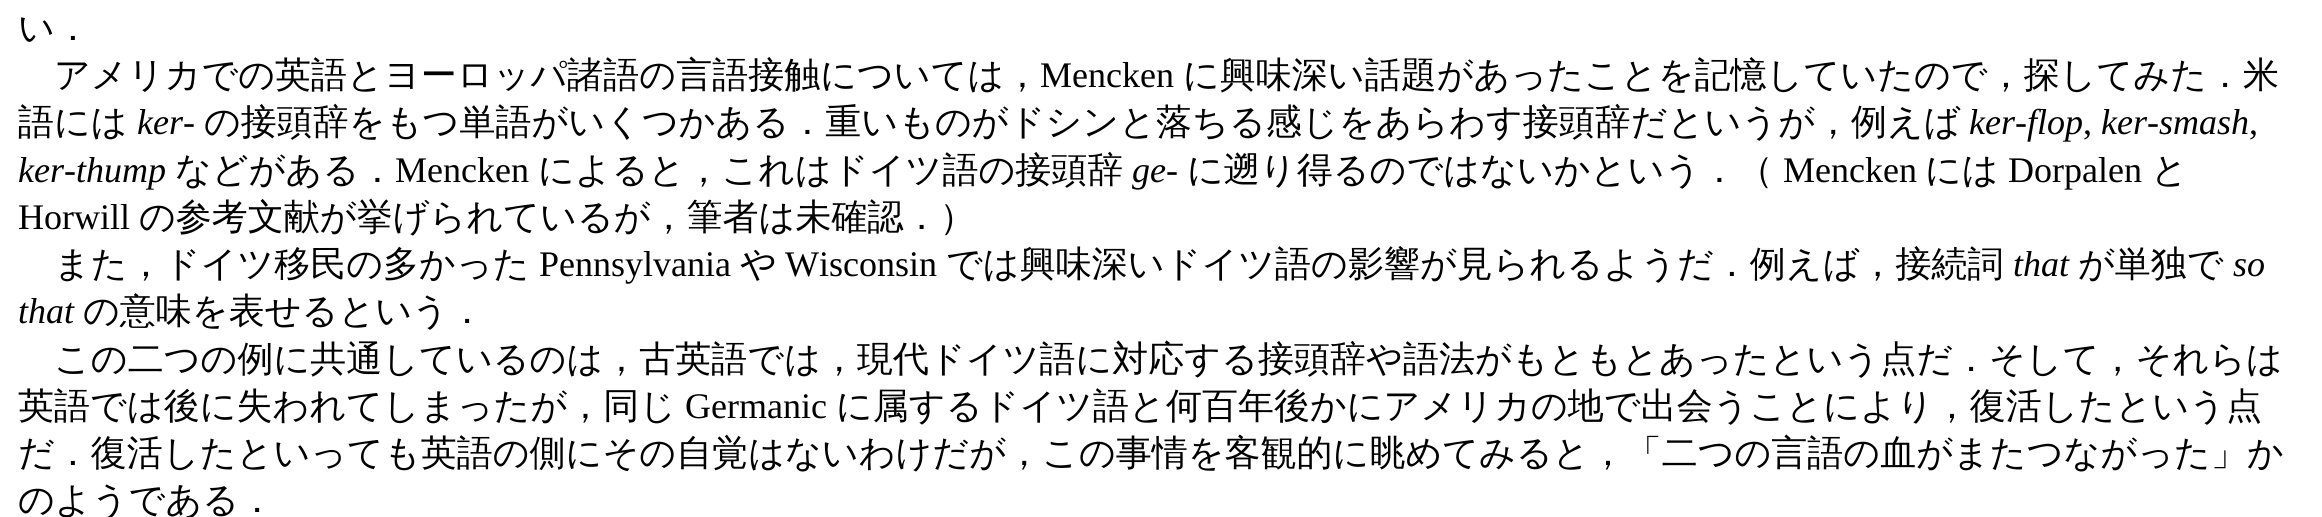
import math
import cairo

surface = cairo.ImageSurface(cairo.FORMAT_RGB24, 2322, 517)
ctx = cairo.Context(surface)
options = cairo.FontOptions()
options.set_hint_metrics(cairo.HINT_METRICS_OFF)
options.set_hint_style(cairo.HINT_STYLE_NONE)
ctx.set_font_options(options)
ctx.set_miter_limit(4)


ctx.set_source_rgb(1, 1, 1)
ctx.paint()
ctx.select_font_face("WenQuanYi Zen Hei Medium")
ctx.set_font_size(36)
ctx.set_source_rgb(0, 0, 0)
ctx.move_to(18, 40)
ctx.show_text("い．")
ctx.move_to(54, 87)
ctx.show_text("アメリカでの英語とヨーロッパ諸語の言語接触については，")
ctx.select_font_face("Liberation Serif")
ctx.move_to(1040, 87)
ctx.show_text("Mencken")
ctx.select_font_face("WenQuanYi Zen Hei Medium")
ctx.move_to(1183, 87)
ctx.show_text("に興味深い話題があったことを記憶していたので，探してみた．米")
ctx.move_to(18, 134)
ctx.show_text("語には")
ctx.select_font_face("Liberation Serif", cairo.FONT_SLANT_ITALIC)
ctx.move_to(137, 134)
ctx.show_text("ker")
ctx.select_font_face("Liberation Serif")
ctx.move_to(183, 134)
ctx.show_text("-")
ctx.select_font_face("WenQuanYi Zen Hei Medium")
ctx.move_to(204, 134)
ctx.show_text("の接頭辞をもつ単語がいくつかある．重いものがドシンと落ちる感じをあらわす接頭辞だというが，例えば")
ctx.select_font_face("Liberation Serif", cairo.FONT_SLANT_ITALIC)
ctx.move_to(1969, 134)
ctx.show_text("ker-flop")
ctx.move_to(2101, 134)
ctx.show_text("ker-smash")
ctx.select_font_face("Liberation Serif")
ctx.move_to(2083, 134)
ctx.show_text(",")
ctx.move_to(2249, 134)
ctx.show_text(",")
ctx.select_font_face("Liberation Serif", cairo.FONT_SLANT_ITALIC)
ctx.move_to(18, 182)
ctx.show_text("ker-thump")
ctx.select_font_face("WenQuanYi Zen Hei Medium")
ctx.move_to(175, 182)
ctx.show_text("などがある．")
ctx.select_font_face("Liberation Serif")
ctx.move_to(395, 182)
ctx.show_text("Mencken")
ctx.select_font_face("WenQuanYi Zen Hei Medium")
ctx.move_to(538, 182)
ctx.show_text("によると，これはドイツ語の接頭辞")
ctx.select_font_face("Liberation Serif", cairo.FONT_SLANT_ITALIC)
ctx.move_to(1132, 182)
ctx.show_text("ge")
ctx.select_font_face("Liberation Serif")
ctx.move_to(1166, 182)
ctx.show_text("-")
ctx.select_font_face("WenQuanYi Zen Hei Medium")
ctx.move_to(1187, 182)
ctx.show_text("に遡り得るのではないかという．（")
ctx.select_font_face("Liberation Serif")
ctx.move_to(1783, 182)
ctx.show_text("Mencken")
ctx.select_font_face("WenQuanYi Zen Hei Medium")
ctx.move_to(1925, 182)
ctx.show_text("には")
ctx.select_font_face("Liberation Serif")
ctx.move_to(2008, 182)
ctx.show_text("Dorpalen")
ctx.select_font_face("WenQuanYi Zen Hei Medium")
ctx.move_to(2151, 182)
ctx.show_text("と")
ctx.select_font_face("Liberation Serif")
ctx.move_to(18, 229)
ctx.show_text("Horwill")
ctx.select_font_face("WenQuanYi Zen Hei Medium")
ctx.move_to(139, 229)
ctx.show_text("の参考文献が挙げられているが，筆者は未確認．）")
ctx.move_to(54, 276)
ctx.show_text("また，ドイツ移民の多かった")
ctx.select_font_face("Liberation Serif")
ctx.move_to(539, 276)
ctx.show_text("Pennsylvania")
ctx.select_font_face("WenQuanYi Zen Hei Medium")
ctx.move_to(740, 276)
ctx.show_text("や")
ctx.select_font_face("Liberation Serif")
ctx.move_to(785, 276)
ctx.show_text("Wisconsin")
ctx.select_font_face("WenQuanYi Zen Hei Medium")
ctx.move_to(946, 276)
ctx.show_text("では興味深いドイツ語の影響が見られるようだ．例えば，接続詞")
ctx.select_font_face("Liberation Serif", cairo.FONT_SLANT_ITALIC)
ctx.move_to(2013, 276)
ctx.show_text("that")
ctx.select_font_face("WenQuanYi Zen Hei Medium")
ctx.move_to(2078, 276)
ctx.show_text("が単独で")
ctx.select_font_face("Liberation Serif", cairo.FONT_SLANT_ITALIC)
ctx.move_to(2233, 276)
ctx.show_text("so")
ctx.move_to(18, 323)
ctx.show_text("that")
ctx.select_font_face("WenQuanYi Zen Hei Medium")
ctx.move_to(83, 323)
ctx.show_text("の意味を表せるという．")
ctx.move_to(54, 371)
ctx.show_text("この二つの例に共通しているのは，古英語では，現代ドイツ語に対応する接頭辞や語法がもともとあったという点だ．そして，それらは")
ctx.move_to(18, 418)
ctx.show_text("英語では後に失われてしまったが，同じ")
ctx.select_font_face("Liberation Serif")
ctx.move_to(685, 418)
ctx.show_text("Germanic")
ctx.select_font_face("WenQuanYi Zen Hei Medium")
ctx.move_to(836, 418)
ctx.show_text("に属するドイツ語と何百年後かにアメリカの地で出会うことにより，復活したという点")
ctx.move_to(18, 465)
ctx.show_text("だ．復活したといっても英語の側にその自覚はないわけだが，この事情を客観的に眺めてみると，「二つの言語の血がまたつながった」か")
ctx.move_to(18, 512)
ctx.show_text("のようである．")
surface.write_to_png("page.png")
